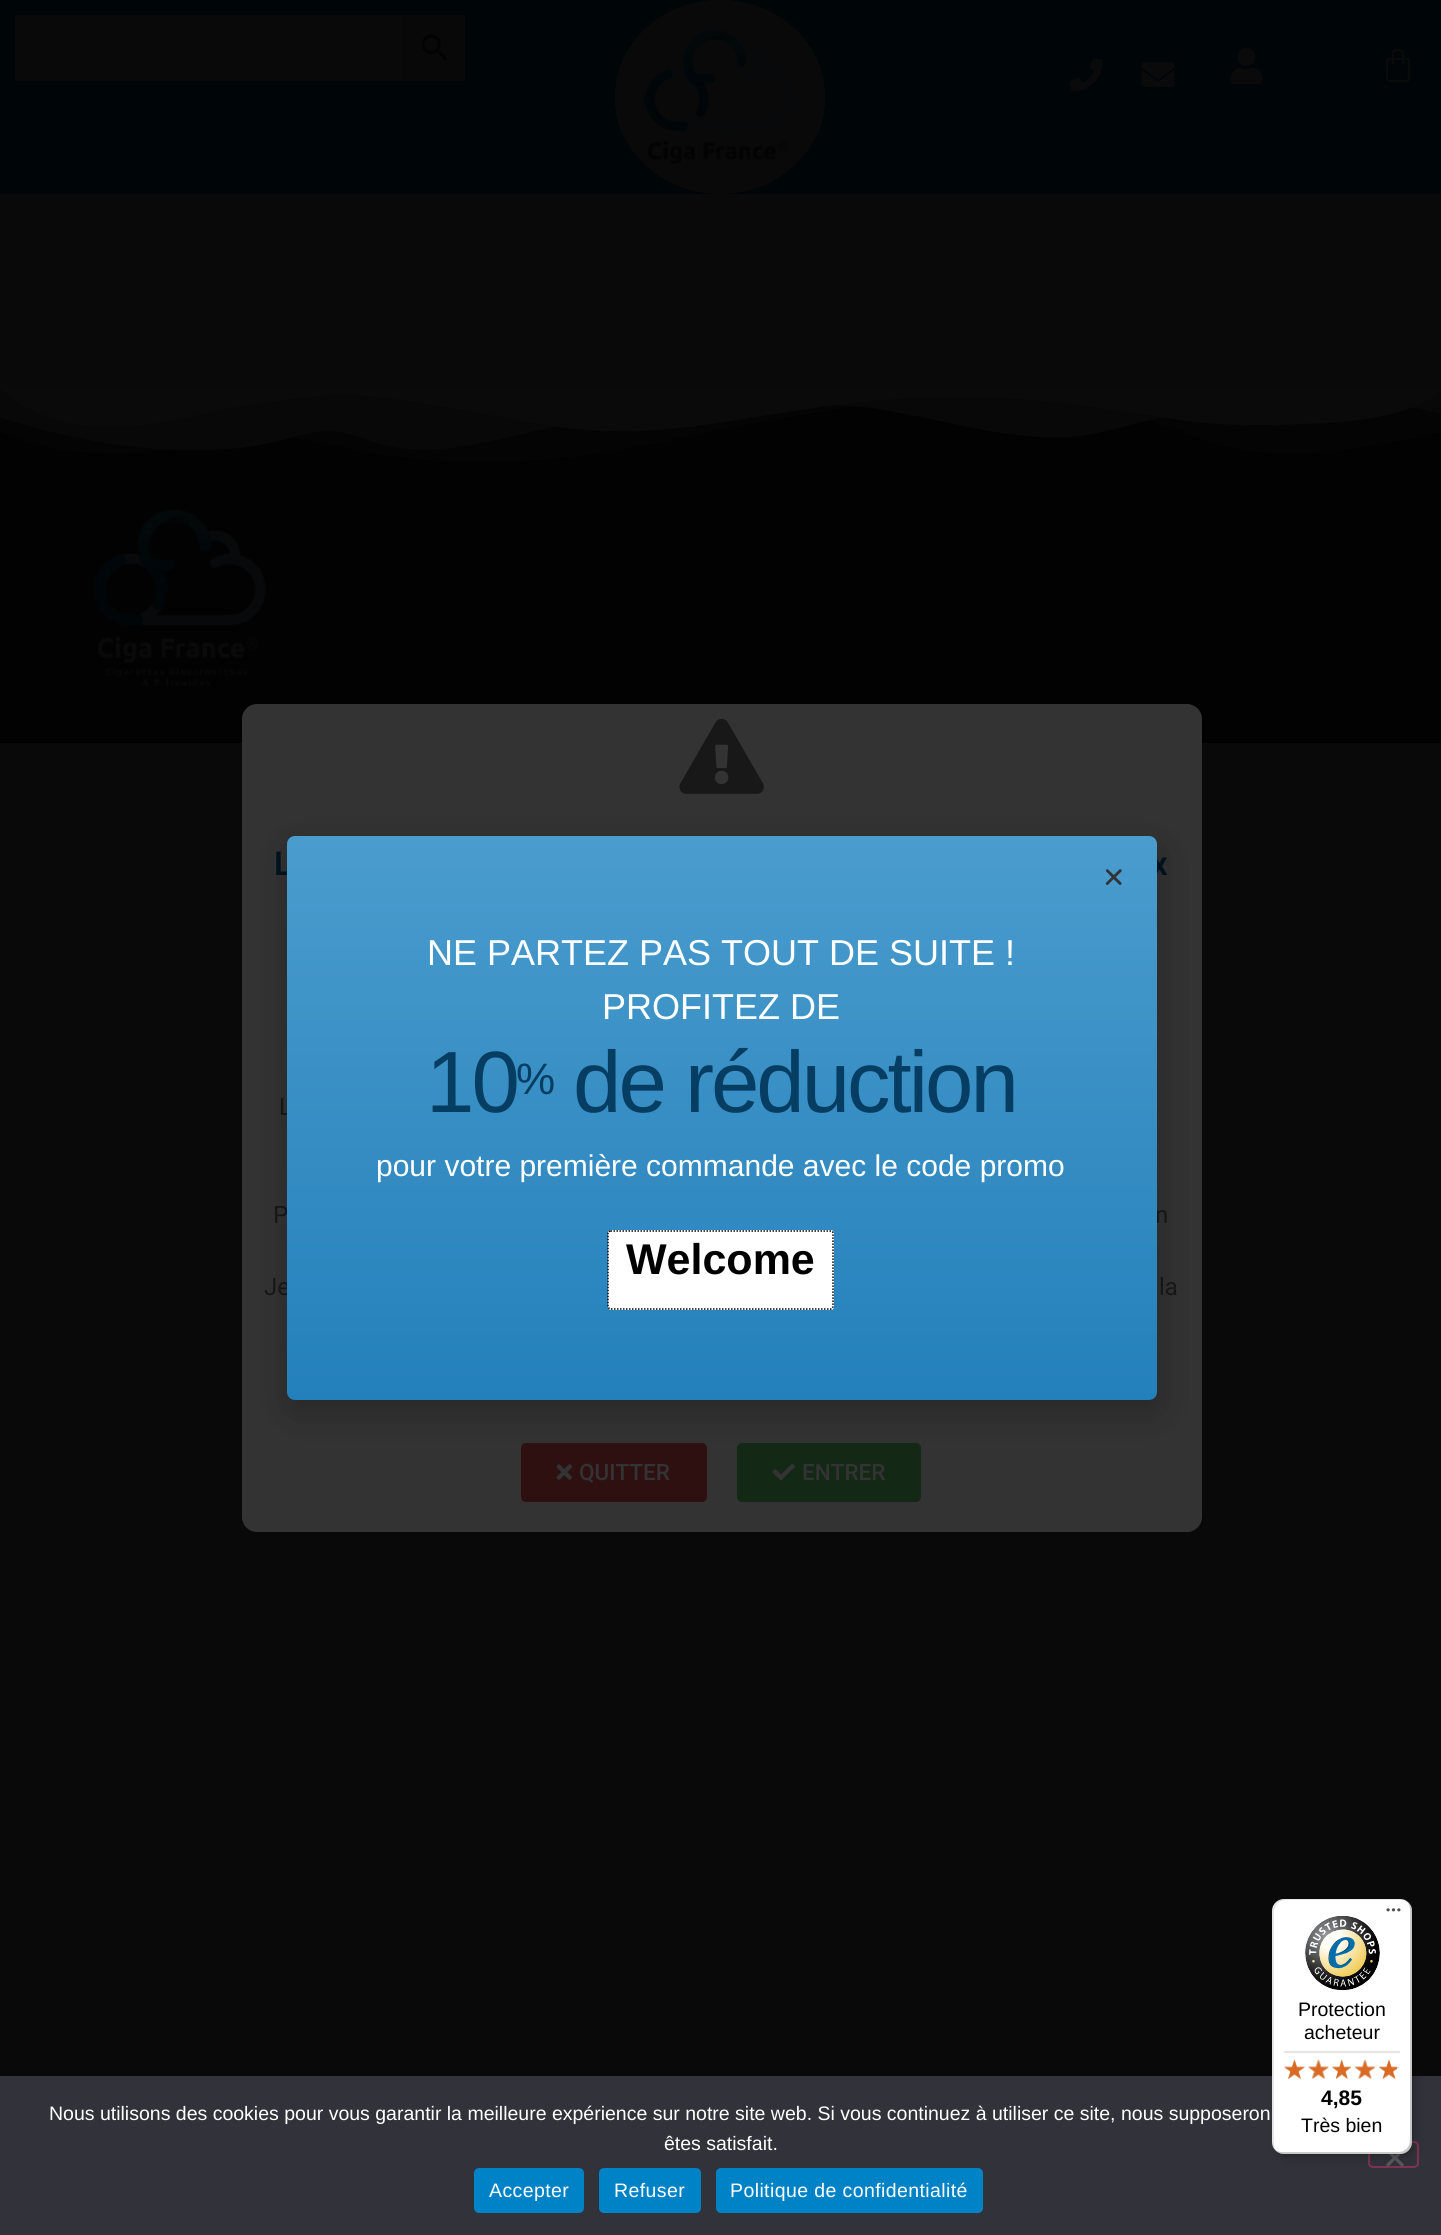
import math
import cairo

surface = cairo.ImageSurface(cairo.FORMAT_RGB24, 1441, 2235)
ctx = cairo.Context(surface)
options = cairo.FontOptions()
options.set_hint_metrics(cairo.HINT_METRICS_OFF)
options.set_hint_style(cairo.HINT_STYLE_NONE)
ctx.set_font_options(options)
ctx.set_miter_limit(4)


def spaced_text(x, y, s, letter, word):
    ctx.move_to(x, y)
    for ch in s:
        ctx.show_text(ch)
        ctx.rel_move_to(letter + word * (ch == ' '), 0)


def round_rect(x, y, w, h, r):
    ctx.new_sub_path()
    for i, (u, v) in enumerate([(x + w - r, y + h - r), (x + r, y + h - r), (x + r, y + r), (x + w - r, y + r)]):
        ctx.arc(u, v, r, i * math.pi / 2, (i + 1) * math.pi / 2)
    ctx.close_path()


def shadow(x, y, w, h, r, blur, alpha):
    ctx.push_group_with_content(cairo.CONTENT_ALPHA)
    ctx.set_operator(cairo.OPERATOR_SOURCE)
    for i in range(15, -16, -2):
        e = blur * i / 6
        if min(w, h) + 2 * e > 0:
            ctx.set_source_rgba(0, 0, 0, alpha * math.erfc((i - 1) / 8.5) / 2)
            round_rect(x - e, y - e, w + 2 * e, h + 2 * e, max(0, min(r + e + blur * .6, min(w, h) / 2 + e)))
            ctx.fill()
    ctx.mask(ctx.pop_group())


def picture(path, x, y, w, h):
    ctx.save()
    ctx.set_source_surface(cairo.ImageSurface.create_from_png(path), x, y)
    ctx.rectangle(x, y, w, h)
    ctx.fill()
    ctx.restore()


ctx.set_source_rgb(0.039, 0.039, 0.039)
ctx.paint()
ctx.set_source_rgb(0, 0.02, 0.031)
ctx.rectangle(0, 0, 1441, 194)
ctx.fill()
ctx.set_source_rgb(0.035, 0.035, 0.035)
ctx.rectangle(403, 16, 61, 64)
ctx.fill_preserve()
ctx.stroke()
ctx.set_source_rgb(0.039, 0.039, 0.039)
ctx.rectangle(16, 16, 387, 64)
ctx.fill_preserve()
ctx.set_source_rgb(0.035, 0.035, 0.035)
ctx.stroke()
picture("img1.png", 421, 34, 27, 27)
ctx.set_source_rgb(0.039, 0.039, 0.039)
ctx.new_path()
ctx.move_to(720, 0)
ctx.curve_to(778, 0, 825, 43.5, 825, 97)
ctx.curve_to(825, 150.5, 778, 194, 720, 194)
ctx.curve_to(662, 194, 615, 150.5, 615, 97)
ctx.curve_to(615, 43.5, 662, 0, 720, 0)
ctx.close_path()
ctx.fill()
ctx.new_path()
ctx.move_to(720, 15)
ctx.curve_to(769.5, 15, 810, 51.5, 810, 97)
ctx.curve_to(810, 142, 769.5, 178.5, 720, 178.5)
ctx.curve_to(670.5, 178.5, 630, 142, 630, 97)
ctx.curve_to(630, 51.5, 670.5, 15, 720, 15)
ctx.close_path()
ctx.set_line_width(30)
ctx.stroke()
picture("img2.png", 645, 30, 150, 134)
picture("img3.png", 1069, 59, 34, 33)
picture("img4.png", 1141, 62, 34, 25)
picture("img5.png", 1230, 48, 33, 36)
picture("img6.png", 1386, 48, 24, 34)
ctx.set_source_rgb(0.008, 0.008, 0.008)
ctx.rectangle(0, 389, 1441, 354)
ctx.fill()
picture("img7.png", 0, 389, 1441, 73)
picture("img8.png", 94, 508, 172, 180)
ctx.set_source_rgb(0.2, 0.2, 0.2)
round_rect(242, 704, 960, 828, 15)
ctx.fill()
picture("img9.png", 679, 718, 85, 76)
ctx.select_font_face("Roboto SemiBold")
ctx.set_font_size(33)
ctx.set_source_rgb(0, 0.075, 0.125)
ctx.move_to(274, 875)
ctx.show_text("L")
ctx.move_to(1151, 875)
ctx.show_text("x")
ctx.select_font_face("Roboto")
ctx.set_font_size(24)
ctx.set_source_rgb(0.094, 0.094, 0.094)
ctx.move_to(279, 1115)
ctx.show_text("L")
ctx.move_to(273, 1223)
ctx.show_text("P")
ctx.move_to(1155, 1223)
ctx.show_text("n")
ctx.move_to(264, 1295)
ctx.show_text("Je")
ctx.move_to(1159, 1295)
ctx.show_text("la")
ctx.set_source_rgb(0.18, 0.063, 0.067)
round_rect(521, 1443, 186, 59, 5)
ctx.fill()
picture("img10.png", 556, 1464, 16, 16)
ctx.select_font_face("Roboto Medium")
ctx.set_font_size(22.5)
ctx.set_source_rgb(0.2, 0.2, 0.2)
ctx.move_to(579, 1480)
ctx.show_text("QUITTER")
ctx.set_source_rgb(0.075, 0.161, 0.086)
round_rect(737, 1443, 184, 59, 5)
ctx.fill()
picture("img11.png", 772, 1463, 23, 18)
ctx.set_source_rgb(0.2, 0.2, 0.2)
ctx.move_to(802, 1480)
ctx.show_text("ENTRER")
ctx.set_source_rgb(0, 0, 0)
shadow(285, 843, 879, 573, 12, 17, 0.2)
gradient = cairo.LinearGradient(722, 836, 722, 1400)
gradient.add_color_stop_rgba(0, 0.29, 0.612, 0.804, 1)
gradient.add_color_stop_rgba(1, 0.141, 0.502, 0.733, 1)
ctx.set_source(gradient)
round_rect(287, 836, 870, 564, 8)
ctx.fill()
picture("img12.png", 1105, 869, 17, 16)
ctx.select_font_face("Liberation Sans")
ctx.set_font_size(36)
ctx.set_source_rgb(1, 1, 1)
ctx.move_to(427, 965)
ctx.show_text("NE PARTEZ PAS TOUT DE SUITE !")
ctx.move_to(602, 1019)
ctx.show_text("PROFITEZ DE")
ctx.set_font_size(87)
ctx.set_source_rgb(0.024, 0.239, 0.384)
spaced_text(426, 1112, "10", -3, 0)
ctx.set_font_size(44)
spaced_text(516, 1094, "%", -3, 0)
ctx.set_font_size(87)
spaced_text(573, 1112, "de réduction", -3, 0)
ctx.set_font_size(30)
ctx.set_source_rgb(1, 1, 1)
ctx.move_to(376, 1176)
ctx.show_text("pour votre première commande avec le code promo")
round_rect(608, 1230, 226, 80, 3)
ctx.fill()
ctx.new_path()
ctx.move_to(610.5, 1231)
ctx.line_to(831, 1231)
ctx.curve_to(832, 1231, 833, 1232, 833, 1233)
ctx.line_to(833, 1306.5)
ctx.curve_to(833, 1307.5, 832, 1309, 831, 1309)
ctx.line_to(610.5, 1309)
ctx.curve_to(609.5, 1309, 608, 1307.5, 608, 1306.5)
ctx.line_to(608, 1233)
ctx.curve_to(608, 1232, 609.5, 1231, 610.5, 1231)
ctx.close_path()
ctx.set_source_rgb(0, 0, 0)
ctx.set_line_width(1.5)
ctx.set_dash([1.5, 1.5])
ctx.stroke()
ctx.select_font_face("Liberation Sans", cairo.FONT_SLANT_NORMAL, cairo.FONT_WEIGHT_BOLD)
ctx.set_font_size(43)
ctx.move_to(626, 1274)
ctx.show_text("Welcome")
ctx.set_source_rgb(0.196, 0.196, 0.227)
ctx.rectangle(0, 2076, 1441, 159)
ctx.fill()
round_rect(1369, 2142, 49, 25, 4)
ctx.set_source_rgb(0.498, 0.2, 0.314)
ctx.set_line_width(2)
ctx.set_dash([])
ctx.stroke()
ctx.set_source_rgb(0.349, 0.349, 0.365)
ctx.new_path()
ctx.move_to(1402, 2148.5)
ctx.line_to(1404, 2151)
ctx.line_to(1388, 2167)
ctx.line_to(1386, 2164.5)
ctx.close_path()
ctx.fill()
ctx.new_path()
ctx.move_to(1386, 2151)
ctx.line_to(1388, 2148.5)
ctx.line_to(1404, 2164.5)
ctx.line_to(1402, 2167)
ctx.close_path()
ctx.fill()
ctx.set_source_rgb(0, 0, 0)
shadow(1277, 1904, 139, 255, 12, 6, 0.15)
shadow(1274, 1901, 139, 255, 12, 1.5, 0.15)
ctx.set_source_rgb(1, 1, 1)
round_rect(1272, 1899, 140, 255, 12)
ctx.fill()
ctx.set_source_rgba(0, 0, 0, 0.1)
ctx.new_path()
ctx.move_to(1286, 1900)
ctx.line_to(1401, 1900)
ctx.curve_to(1404, 1900, 1407, 1901, 1409, 1903)
ctx.curve_to(1407, 1901, 1404, 1899, 1400, 1899)
ctx.line_to(1284, 1899)
ctx.curve_to(1277, 1899, 1272, 1904, 1272, 1911)
ctx.line_to(1272, 2142)
ctx.curve_to(1272, 2146, 1274, 2149, 1277, 2152)
ctx.curve_to(1275, 2149, 1274, 2147, 1274, 2144)
ctx.line_to(1274, 1912)
ctx.curve_to(1274, 1906, 1279, 1900, 1286, 1900)
ctx.close_path()
ctx.fill()
ctx.set_source_rgba(0, 0, 0, 0.2)
ctx.new_path()
ctx.move_to(1274, 2149)
ctx.curve_to(1277, 2152, 1280, 2154, 1284, 2154)
ctx.line_to(1400, 2154)
ctx.curve_to(1407, 2154, 1412, 2149, 1412, 2142)
ctx.line_to(1412, 1911)
ctx.curve_to(1412, 1906, 1409, 1902, 1405, 1900)
ctx.curve_to(1408, 1902, 1410, 1906, 1410, 1910)
ctx.line_to(1410, 2140)
ctx.curve_to(1410, 2147, 1405, 2152, 1398, 2152)
ctx.line_to(1282, 2152)
ctx.curve_to(1279, 2152, 1277, 2151, 1274, 2149)
ctx.close_path()
ctx.fill()
ctx.set_source_rgba(0.196, 0.196, 0.196, 0.2)
ctx.new_path()
ctx.move_to(1276, 2151)
ctx.curve_to(1278, 2153, 1281, 2154, 1284, 2154)
ctx.line_to(1400, 2154)
ctx.curve_to(1407, 2154, 1412, 2149, 1412, 2142)
ctx.line_to(1412, 1911)
ctx.curve_to(1412, 1907, 1410, 1904, 1408, 1902)
ctx.curve_to(1410, 1904, 1411, 1907, 1411, 1910)
ctx.line_to(1411, 2141)
ctx.curve_to(1411, 2148, 1405, 2153, 1399, 2153)
ctx.line_to(1283, 2153)
ctx.curve_to(1280, 2153, 1278, 2152, 1276, 2151)
ctx.close_path()
ctx.fill()
ctx.set_source_rgba(1, 1, 1, 0.3)
ctx.new_path()
ctx.move_to(1275, 2150)
ctx.curve_to(1277, 2152, 1280, 2154, 1284, 2154)
ctx.line_to(1400, 2154)
ctx.curve_to(1407, 2154, 1412, 2149, 1412, 2142)
ctx.line_to(1412, 1911)
ctx.curve_to(1412, 1906, 1410, 1903, 1406, 1901)
ctx.curve_to(1409, 1903, 1411, 1906, 1411, 1910)
ctx.line_to(1411, 2141)
ctx.curve_to(1411, 2148, 1405, 2153, 1399, 2153)
ctx.line_to(1283, 2153)
ctx.curve_to(1280, 2153, 1277, 2152, 1275, 2150)
ctx.close_path()
ctx.fill()
picture("img13.png", 1386, 1908, 15, 4)
picture("img14.png", 1305, 1916, 75, 75)
ctx.select_font_face("Liberation Sans")
ctx.set_font_size(19.5)
ctx.set_source_rgb(0, 0, 0)
ctx.move_to(1298, 2016)
ctx.show_text("Protection")
ctx.move_to(1304, 2039)
ctx.show_text("acheteur")
ctx.set_source_rgb(0.898, 0.898, 0.898)
ctx.rectangle(1284, 2051, 116, 2)
ctx.fill()
picture("img20.png", 1284, 2060, 21, 19)
picture("img15.png", 1284, 2059, 21, 20)
picture("img21.png", 1308, 2060, 21, 19)
picture("img16.png", 1308, 2059, 21, 20)
picture("img22.png", 1332, 2060, 19, 19)
picture("img17.png", 1332, 2059, 19, 20)
picture("img23.png", 1355, 2060, 20, 19)
picture("img18.png", 1354, 2059, 22, 20)
picture("img24.png", 1379, 2060, 20, 19)
picture("img19.png", 1379, 2059, 18, 20)
ctx.select_font_face("Liberation Sans", cairo.FONT_SLANT_NORMAL, cairo.FONT_WEIGHT_BOLD)
ctx.set_font_size(21)
ctx.set_source_rgb(0, 0, 0)
ctx.move_to(1321, 2105)
ctx.show_text("4,85")
ctx.select_font_face("Liberation Sans")
ctx.set_font_size(19.5)
ctx.move_to(1301, 2132)
ctx.show_text("Très bien")
ctx.set_source_rgb(1, 1, 1)
ctx.move_to(49, 2120)
ctx.show_text("Nous utilisons des cookies pour vous garantir la meilleure expérience sur notre site web. Si vous continuez à utiliser ce site, nous supposeron")
ctx.move_to(664, 2150)
ctx.show_text("êtes satisfait.")
ctx.set_source_rgb(0, 0.51, 0.776)
round_rect(474, 2168, 110, 45, 5)
ctx.fill()
ctx.set_source_rgb(1, 1, 1)
spaced_text(489, 2197, "Accepter", 0.4, 0)
ctx.set_source_rgb(0, 0.51, 0.776)
round_rect(599, 2168, 102, 45, 5)
ctx.fill()
ctx.set_source_rgb(1, 1, 1)
spaced_text(614, 2197, "Refuser", 0.4, 0)
ctx.set_source_rgb(0, 0.51, 0.776)
round_rect(716, 2168, 267, 45, 5)
ctx.fill()
ctx.set_source_rgb(1, 1, 1)
spaced_text(730, 2197, "Politique de confidentialité", 0.4, 0)
surface.write_to_png("page.png")
